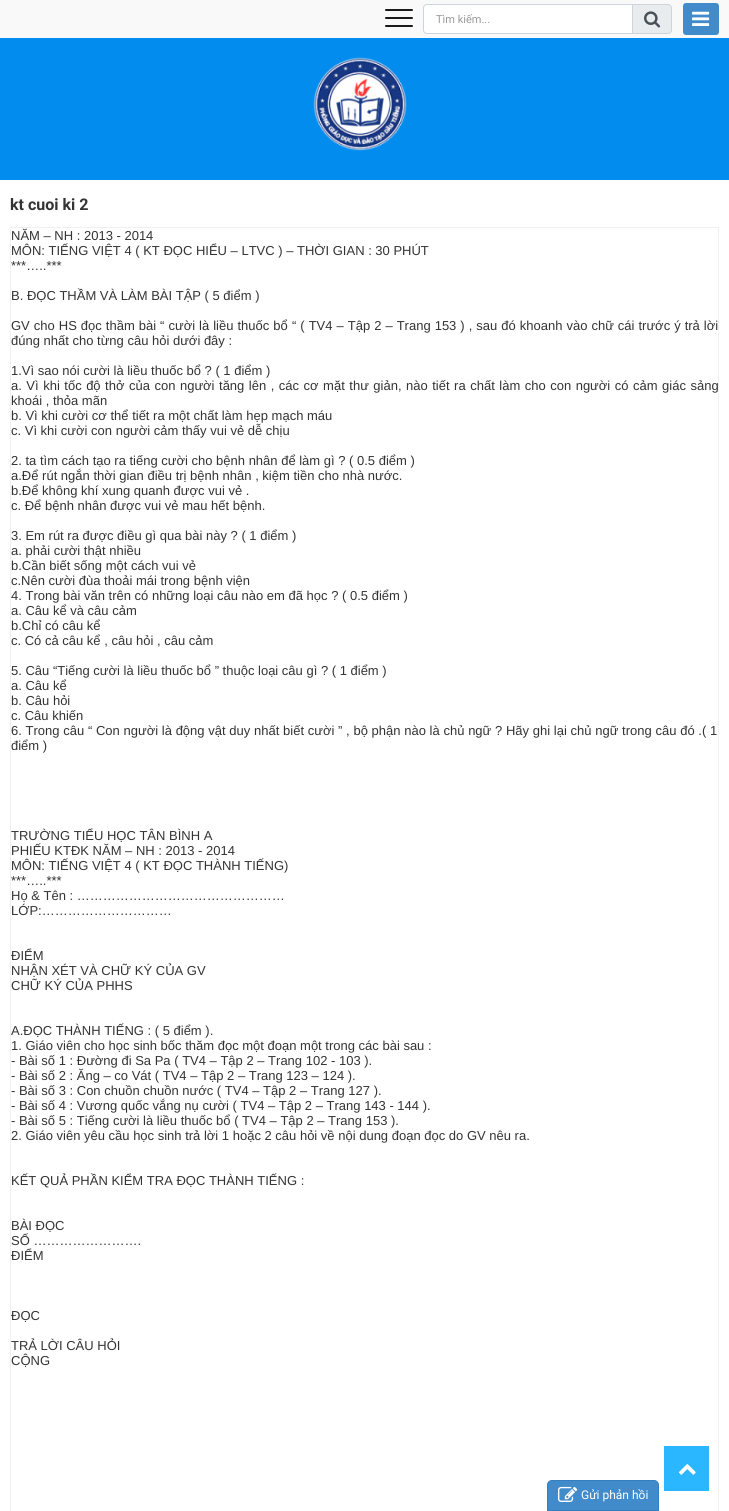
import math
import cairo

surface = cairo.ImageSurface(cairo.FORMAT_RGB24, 729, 1511)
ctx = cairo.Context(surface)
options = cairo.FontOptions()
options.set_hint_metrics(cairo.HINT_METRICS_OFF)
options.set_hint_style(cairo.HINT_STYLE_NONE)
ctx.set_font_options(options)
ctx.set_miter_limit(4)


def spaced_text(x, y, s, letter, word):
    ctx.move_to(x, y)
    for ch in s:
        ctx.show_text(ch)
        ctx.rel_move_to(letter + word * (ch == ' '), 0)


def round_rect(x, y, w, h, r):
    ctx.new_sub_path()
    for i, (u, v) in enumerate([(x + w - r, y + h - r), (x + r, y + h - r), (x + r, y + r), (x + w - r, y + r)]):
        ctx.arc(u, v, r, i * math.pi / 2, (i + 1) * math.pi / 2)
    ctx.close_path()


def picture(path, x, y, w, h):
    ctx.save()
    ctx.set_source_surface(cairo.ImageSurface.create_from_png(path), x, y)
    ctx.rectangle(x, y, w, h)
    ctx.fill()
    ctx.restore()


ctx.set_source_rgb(1, 1, 1)
ctx.paint()
ctx.set_source_rgb(0.973, 0.976, 0.98)
ctx.rectangle(0, 0, 729, 38)
ctx.fill()
ctx.set_source_rgb(0.102, 0.102, 0.102)
round_rect(385, 9, 28, 2, 1)
ctx.fill()
round_rect(385, 17, 28, 2, 1)
ctx.fill()
round_rect(385, 25, 28, 2, 1)
ctx.fill()
ctx.set_source_rgb(1, 1, 1)
ctx.new_path()
ctx.move_to(427, 4.5)
ctx.line_to(632.5, 4.5)
ctx.line_to(632.5, 33.5)
ctx.line_to(427, 33.5)
ctx.curve_to(425, 33.5, 423.5, 32, 423.5, 30)
ctx.line_to(423.5, 8)
ctx.curve_to(423.5, 6, 425, 4.5, 427, 4.5)
ctx.close_path()
ctx.fill_preserve()
ctx.set_source_rgb(0.808, 0.831, 0.855)
ctx.set_line_width(1)
ctx.stroke()
ctx.select_font_face("Roboto")
ctx.set_font_size(11)
ctx.set_source_rgb(0.6, 0.6, 0.6)
ctx.move_to(436, 23)
ctx.show_text("Tìm kiếm...")
ctx.set_source_rgb(0.914, 0.925, 0.937)
ctx.new_path()
ctx.move_to(632.5, 4.5)
ctx.line_to(668, 4.5)
ctx.curve_to(670, 4.5, 671.5, 6, 671.5, 8)
ctx.line_to(671.5, 30)
ctx.curve_to(671.5, 32, 670, 33.5, 668, 33.5)
ctx.line_to(632.5, 33.5)
ctx.close_path()
ctx.fill_preserve()
ctx.set_source_rgb(0.808, 0.831, 0.855)
ctx.stroke()
picture("img1.png", 644, 11, 17, 17)
ctx.set_source_rgb(0.259, 0.545, 0.792)
round_rect(683, 3, 36, 32, 3)
ctx.fill()
picture("img2.png", 692, 11, 18, 15)
ctx.set_source_rgb(0.008, 0.549, 0.933)
ctx.rectangle(0, 38, 729, 142)
ctx.fill()
picture("img3.png", 313, 57, 94, 94)
ctx.select_font_face("Roboto", cairo.FONT_SLANT_NORMAL, cairo.FONT_WEIGHT_BOLD)
ctx.set_font_size(16)
ctx.set_source_rgb(0.2, 0.2, 0.2)
ctx.move_to(10, 210)
ctx.show_text("kt cuoi ki 2")
ctx.rectangle(10.5, 227.5, 708, 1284)
ctx.set_source_rgb(0.941, 0.941, 0.941)
ctx.stroke()
ctx.select_font_face("Liberation Sans")
ctx.set_font_size(13)
ctx.set_source_rgb(0.2, 0.2, 0.2)
ctx.move_to(11, 240)
ctx.show_text("NĂM – NH : 2013 - 2014")
ctx.move_to(11, 255)
ctx.show_text("MÔN: TIẾNG VIỆT 4 ( KT ĐỌC HIỂU – LTVC ) – THỜI GIAN : 30 PHÚT")
ctx.move_to(11, 270)
ctx.show_text("***…..***")
ctx.move_to(11, 300)
ctx.show_text("B. ĐỌC THẦM VÀ LÀM BÀI TẬP ( 5 điểm )")
spaced_text(11, 330, "GV cho HS đọc thầm bài “ cười là liều thuốc bổ", 0, 0.4)
spaced_text(292, 330, "“ ( TV4 – Tập 2 – Trang 153 ) , sau đó khoanh vào chữ cái trước ý trả lời", 0, 0.4)
ctx.move_to(11, 345)
ctx.show_text("đúng nhất cho từng câu hỏi dưới đây :")
ctx.move_to(11, 375)
ctx.show_text("1.Vì sao nói cười là liều thuốc bổ ? ( 1 điểm )")
spaced_text(11, 390, "a. Vì khi tốc độ thở của con người tăng lên , các cơ mặt thư giản, nào tiết ra chất làm cho con người có cảm giác sảng", 0, 0.9)
ctx.move_to(11, 405)
ctx.show_text("khoái , thỏa mãn")
ctx.move_to(11, 420)
ctx.show_text("b. Vì khi cười cơ thể tiết ra một chất làm hẹp mạch máu")
ctx.move_to(11, 435)
ctx.show_text("c. Vì khi cười con người cảm thấy vui vẻ dễ chịu")
ctx.move_to(11, 465)
ctx.show_text("2. ta tìm cách tạo ra tiếng cười cho bệnh nhân để làm gì ? ( 0.5 điểm )")
ctx.move_to(11, 480)
ctx.show_text("a.Để rút ngắn thời gian điều trị bệnh nhân , kiệm tiền cho nhà nước.")
ctx.move_to(11, 495)
ctx.show_text("b.Để không khí xung quanh được vui vẻ .")
ctx.move_to(11, 510)
ctx.show_text("c. Để bệnh nhân được vui vẻ mau hết bệnh.")
ctx.move_to(11, 540)
ctx.show_text("3. Em rút ra được điều gì qua bài này ? ( 1 điểm )")
ctx.move_to(11, 555)
ctx.show_text("a. phải cười thật nhiều")
ctx.move_to(11, 570)
ctx.show_text("b.Cần biết sống một cách vui vẻ")
ctx.move_to(11, 585)
ctx.show_text("c.Nên cười đùa thoải mái trong bệnh viện")
ctx.move_to(11, 600)
ctx.show_text("4. Trong bài văn trên có những loại câu nào em đã học ? ( 0.5 điểm )")
ctx.move_to(11, 615)
ctx.show_text("a. Câu kể và câu cảm")
ctx.move_to(11, 630)
ctx.show_text("b.Chỉ có câu kể")
ctx.move_to(11, 645)
ctx.show_text("c. Có cả câu kể , câu hỏi , câu cảm")
ctx.move_to(11, 675)
ctx.show_text("5. Câu “Tiếng cười là liều thuốc bổ ” thuộc loại câu gì ? ( 1 điểm )")
ctx.move_to(11, 690)
ctx.show_text("a. Câu kể")
ctx.move_to(11, 705)
ctx.show_text("b. Câu hỏi")
ctx.move_to(11, 720)
ctx.show_text("c. Câu khiến")
spaced_text(11, 735, "6. Trong câu “ Con người là động vật duy nhất biết cười ” , bộ phận nào là chủ ngữ ? Hãy ghi lại chủ ngữ trong câu đó .( 1", 0, 0.1)
ctx.move_to(11, 750)
ctx.show_text("điểm )")
ctx.move_to(11, 840)
ctx.show_text("TRƯỜNG TIỂU HỌC TÂN BÌNH A")
ctx.move_to(11, 855)
ctx.show_text("PHIẾU KTĐK NĂM – NH : 2013 - 2014")
ctx.move_to(11, 870)
ctx.show_text("MÔN: TIẾNG VIỆT 4 ( KT ĐỌC THÀNH TIẾNG)")
ctx.move_to(11, 885)
ctx.show_text("***…..***")
ctx.move_to(11, 900)
ctx.show_text("Họ & Tên : …………………………………………")
ctx.move_to(11, 915)
ctx.show_text("LỚP:…………………………")
ctx.move_to(11, 960)
ctx.show_text("ĐIỂM")
ctx.move_to(11, 975)
ctx.show_text("NHẬN XÉT VÀ CHỮ KÝ CỦA GV")
ctx.move_to(11, 990)
ctx.show_text("CHỮ KÝ CỦA PHHS")
ctx.move_to(11, 1035)
ctx.show_text("A.ĐỌC THÀNH TIẾNG : ( 5 điểm ).")
ctx.move_to(11, 1050)
ctx.show_text("1. Giáo viên cho học sinh bốc thăm đọc một đoạn một trong các bài sau :")
ctx.move_to(11, 1065)
ctx.show_text("- Bài số 1 : Đường đi Sa Pa ( TV4 – Tập 2 – Trang 102 - 103 ).")
ctx.move_to(11, 1080)
ctx.show_text("- Bài số 2 : Ăng – co Vát ( TV4 – Tập 2 – Trang 123 – 124 ).")
ctx.move_to(11, 1095)
ctx.show_text("- Bài số 3 : Con chuồn chuồn nước ( TV4 – Tập 2 – Trang 127 ).")
ctx.move_to(11, 1110)
ctx.show_text("- Bài số 4 : Vương quốc vắng nụ cười ( TV4 – Tập 2 – Trang 143 - 144 ).")
ctx.move_to(11, 1125)
ctx.show_text("- Bài số 5 : Tiếng cười là liều thuốc bổ ( TV4 – Tập 2 – Trang 153 ).")
ctx.move_to(11, 1140)
ctx.show_text("2. Giáo viên yêu cầu học sinh trả lời 1 hoặc 2 câu hỏi về nội dung đoạn đọc do GV nêu ra.")
ctx.move_to(11, 1185)
ctx.show_text("KẾT QUẢ PHẦN KIỂM TRA ĐỌC THÀNH TIẾNG :")
ctx.move_to(11, 1230)
ctx.show_text("BÀI ĐỌC")
ctx.move_to(11, 1245)
ctx.show_text("SỐ …………………….")
ctx.move_to(11, 1260)
ctx.show_text("ĐIỂM")
ctx.move_to(11, 1320)
ctx.show_text("ĐỌC")
ctx.move_to(11, 1350)
ctx.show_text("TRẢ LỜI CÂU HỎI")
ctx.move_to(11, 1365)
ctx.show_text("CỘNG")
ctx.set_source_rgb(0.165, 0.718, 1)
ctx.rectangle(664, 1446, 45, 45)
ctx.fill()
picture("img4.png", 679, 1464, 17, 11)
ctx.set_source_rgb(0.259, 0.545, 0.792)
ctx.new_path()
ctx.move_to(552, 1480.5)
ctx.line_to(654, 1480.5)
ctx.curve_to(656.5, 1480.5, 658.5, 1482.5, 658.5, 1485)
ctx.line_to(658.5, 1510.5)
ctx.line_to(547.5, 1510.5)
ctx.line_to(547.5, 1485)
ctx.curve_to(547.5, 1482.5, 549.5, 1480.5, 552, 1480.5)
ctx.close_path()
ctx.fill_preserve()
ctx.set_source_rgb(0.208, 0.494, 0.741)
ctx.stroke()
picture("img5.png", 558, 1486, 20, 16)
ctx.select_font_face("Roboto")
ctx.set_font_size(12)
ctx.set_source_rgb(1, 1, 1)
ctx.move_to(581, 1499)
ctx.show_text("Gửi phản hồi")
surface.write_to_png("page.png")
